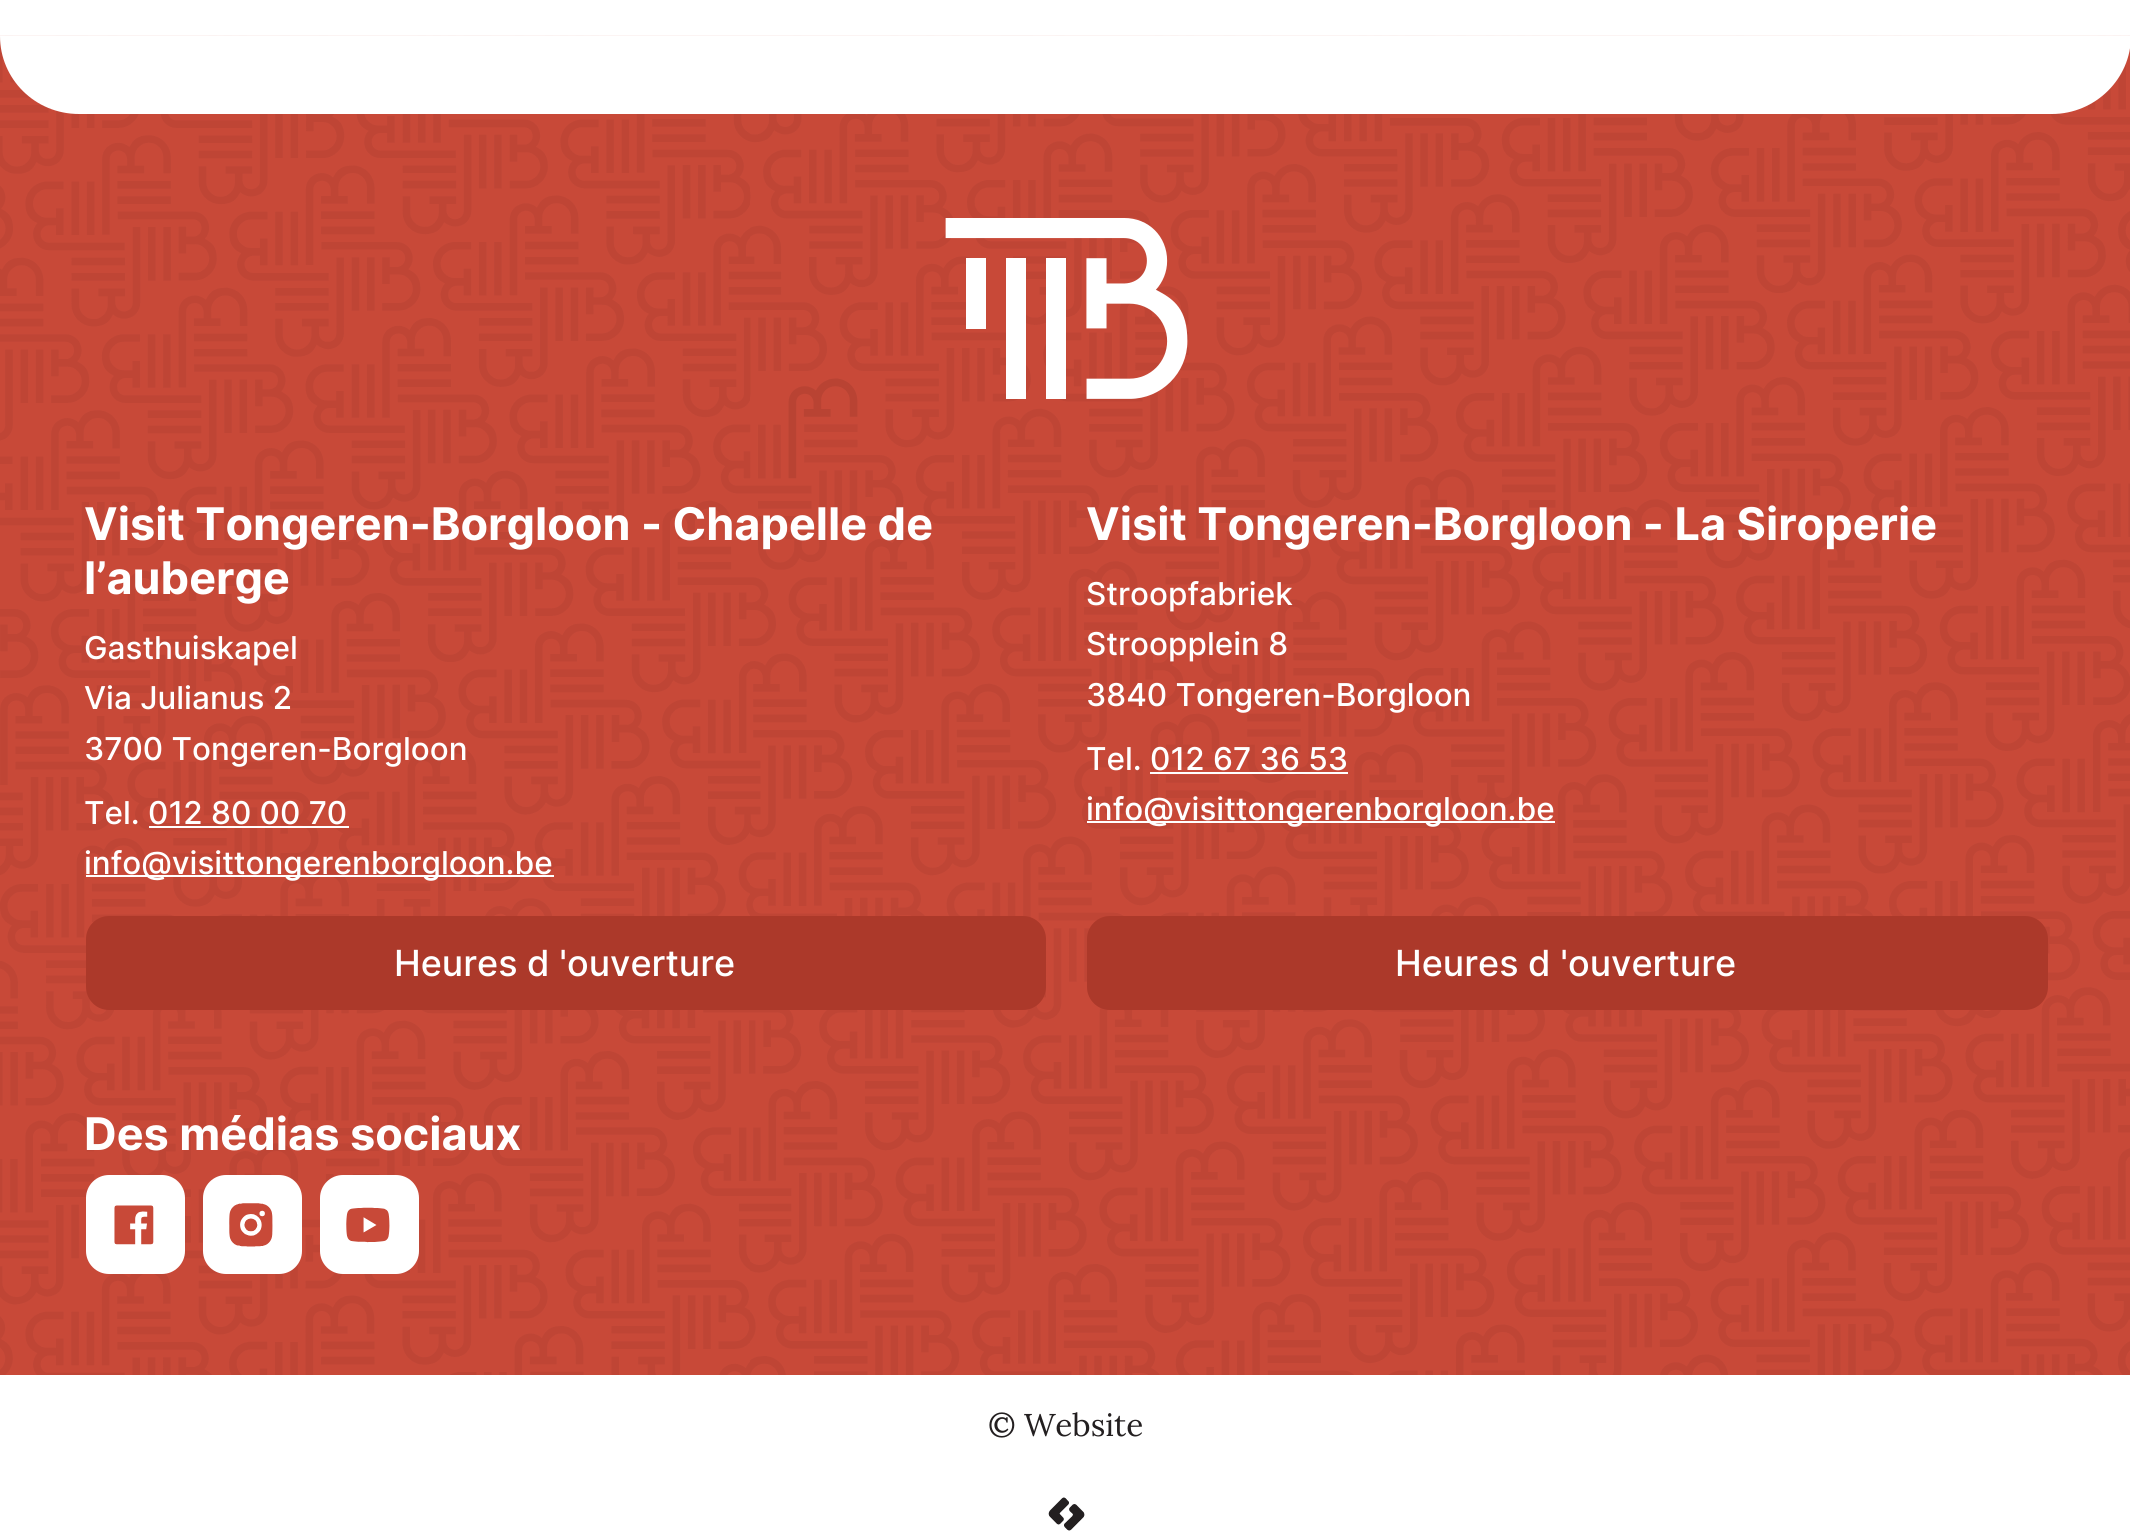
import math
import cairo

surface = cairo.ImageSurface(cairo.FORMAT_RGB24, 2130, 1539)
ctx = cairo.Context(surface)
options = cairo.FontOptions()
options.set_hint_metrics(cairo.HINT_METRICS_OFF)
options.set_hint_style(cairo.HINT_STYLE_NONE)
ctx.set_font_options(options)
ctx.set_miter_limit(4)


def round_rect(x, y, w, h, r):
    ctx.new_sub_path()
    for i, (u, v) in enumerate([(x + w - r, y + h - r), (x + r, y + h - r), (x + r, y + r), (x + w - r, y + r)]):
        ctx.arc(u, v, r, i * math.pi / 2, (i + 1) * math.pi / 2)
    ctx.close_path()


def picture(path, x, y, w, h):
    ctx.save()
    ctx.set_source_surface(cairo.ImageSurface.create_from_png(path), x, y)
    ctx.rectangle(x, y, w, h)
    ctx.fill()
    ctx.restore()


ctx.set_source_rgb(1, 1, 1)
ctx.paint()
picture("img1.png", 0, 35, 2130, 1340)
ctx.set_source_rgb(1, 1, 1)
ctx.new_path()
ctx.move_to(79, 114)
ctx.line_to(2052, 114)
ctx.curve_to(2095, 114, 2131, 79, 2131, 36)
ctx.line_to(0, 36)
ctx.curve_to(0, 79, 35, 114, 79, 114)
ctx.close_path()
ctx.fill()
picture("img2.png", 945, 218, 243, 181)
ctx.select_font_face("Inter", cairo.FONT_SLANT_NORMAL, cairo.FONT_WEIGHT_BOLD)
ctx.set_font_size(45)
ctx.move_to(84, 540)
ctx.show_text("Visit Tongeren-Borgloon - Chapelle de")
ctx.move_to(84, 594)
ctx.show_text("l’auberge")
ctx.select_font_face("Inter Medium")
ctx.set_font_size(31.5)
ctx.move_to(84, 659)
ctx.show_text("Gasthuiskapel")
ctx.move_to(84, 709)
ctx.show_text("Via Julianus 2")
ctx.move_to(84, 760)
ctx.show_text("3700 Tongeren-Borgloon")
ctx.move_to(84, 824)
ctx.show_text("Tel. 012 80 00 70")
ctx.rectangle(149, 826, 200, 2)
ctx.fill()
ctx.rectangle(86, 875, 468, 2)
ctx.fill()
ctx.move_to(84, 874)
ctx.show_text("info@visittongerenborgloon.be")
ctx.set_source_rgb(0.675, 0.224, 0.165)
round_rect(86, 916, 960, 94, 23)
ctx.fill()
ctx.set_font_size(36)
ctx.set_source_rgb(1, 1, 1)
ctx.move_to(394, 976)
ctx.show_text("Heures d 'ouverture")
ctx.select_font_face("Inter", cairo.FONT_SLANT_NORMAL, cairo.FONT_WEIGHT_BOLD)
ctx.set_font_size(45)
ctx.move_to(1086, 540)
ctx.show_text("Visit Tongeren-Borgloon - La Siroperie")
ctx.select_font_face("Inter Medium")
ctx.set_font_size(31.5)
ctx.move_to(1086, 605)
ctx.show_text("Stroopfabriek")
ctx.move_to(1086, 655)
ctx.show_text("Stroopplein 8")
ctx.move_to(1086, 706)
ctx.show_text("3840 Tongeren-Borgloon")
ctx.move_to(1086, 770)
ctx.show_text("Tel. 012 67 36 53")
ctx.rectangle(1150, 772, 198, 2)
ctx.fill()
ctx.rectangle(1087, 821, 468, 2)
ctx.fill()
ctx.move_to(1086, 820)
ctx.show_text("info@visittongerenborgloon.be")
ctx.set_source_rgb(0.675, 0.224, 0.165)
round_rect(1087, 916, 961, 94, 23)
ctx.fill()
ctx.set_font_size(36)
ctx.set_source_rgb(1, 1, 1)
ctx.move_to(1395, 976)
ctx.show_text("Heures d 'ouverture")
ctx.select_font_face("Inter", cairo.FONT_SLANT_NORMAL, cairo.FONT_WEIGHT_BOLD)
ctx.set_font_size(45)
ctx.move_to(84, 1150)
ctx.show_text("Des médias sociaux")
round_rect(86, 1175, 99, 99, 23)
ctx.fill()
picture("img3.png", 114, 1205, 40, 40)
round_rect(203, 1175, 99, 99, 23)
ctx.fill()
picture("img4.png", 229, 1203, 44, 44)
round_rect(320, 1175, 99, 99, 23)
ctx.fill()
picture("img5.png", 346, 1207, 44, 36)
ctx.select_font_face("Lora")
ctx.set_font_size(31.5)
ctx.set_source_rgb(0.137, 0.122, 0.125)
ctx.move_to(988, 1436)
ctx.show_text("© Website")
picture("img6.png", 1048, 1497, 37, 34)
surface.write_to_png("page.png")
